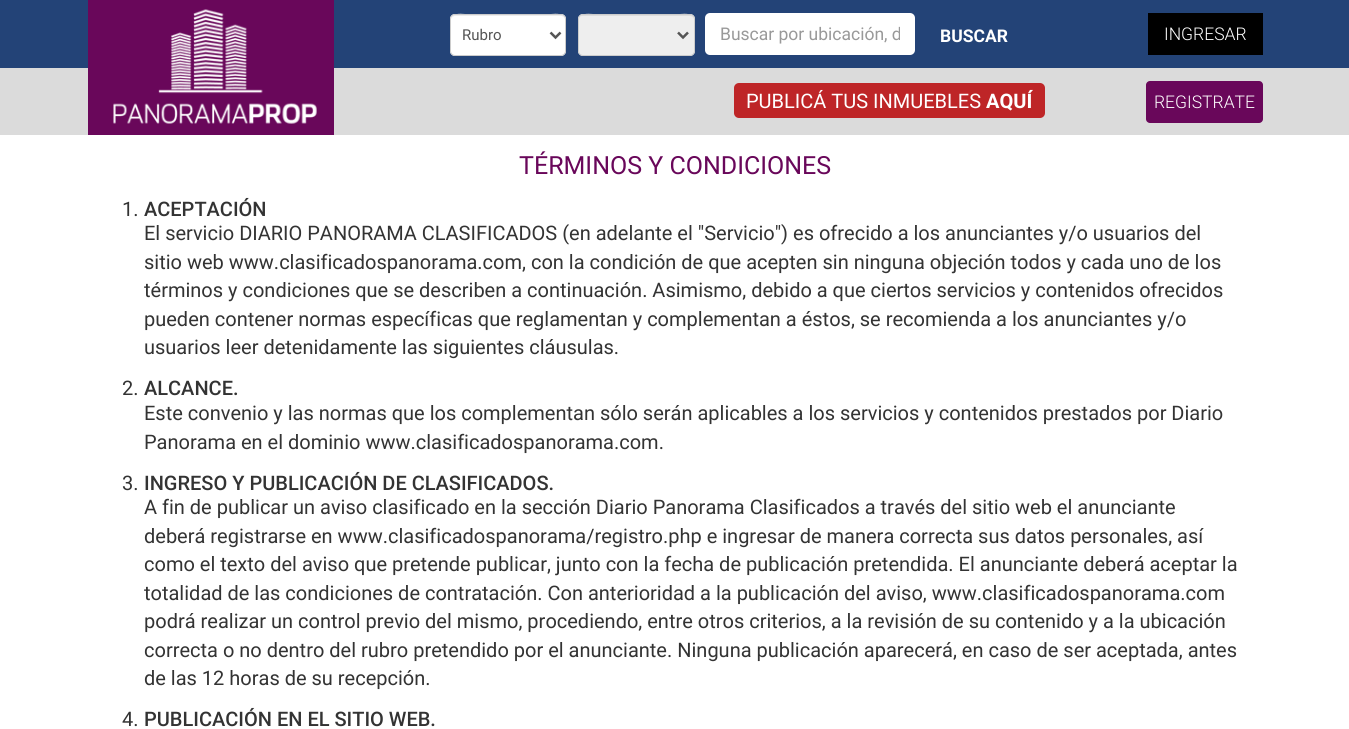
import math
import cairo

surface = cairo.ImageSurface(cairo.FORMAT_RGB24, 1349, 729)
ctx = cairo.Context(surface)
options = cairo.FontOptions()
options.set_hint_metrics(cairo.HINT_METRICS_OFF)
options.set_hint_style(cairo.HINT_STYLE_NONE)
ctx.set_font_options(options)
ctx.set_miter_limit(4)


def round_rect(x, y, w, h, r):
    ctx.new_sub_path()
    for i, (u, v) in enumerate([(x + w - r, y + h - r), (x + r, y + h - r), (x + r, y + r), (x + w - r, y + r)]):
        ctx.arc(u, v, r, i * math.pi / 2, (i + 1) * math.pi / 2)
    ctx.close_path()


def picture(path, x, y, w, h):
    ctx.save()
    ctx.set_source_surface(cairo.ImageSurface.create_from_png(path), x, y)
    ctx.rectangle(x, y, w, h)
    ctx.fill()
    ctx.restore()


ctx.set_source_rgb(1, 1, 1)
ctx.paint()
ctx.set_source_rgb(0.859, 0.859, 0.859)
ctx.rectangle(0, 68, 1349, 67)
ctx.fill()
ctx.set_source_rgb(0.137, 0.263, 0.467)
ctx.rectangle(0, 0, 1349, 68)
ctx.fill()
ctx.set_source_rgb(0.412, 0.031, 0.353)
ctx.rectangle(88, 0, 246, 135)
ctx.fill()
picture("img1.png", 113, 9, 204, 115)
ctx.set_source_rgb(1, 1, 1)
round_rect(450, 14, 116, 42, 5)
ctx.fill()
ctx.set_source_rgb(0.925, 0.925, 0.925)
ctx.new_path()
ctx.move_to(455, 16)
ctx.line_to(561, 16)
ctx.curve_to(563, 16, 565, 18, 565, 20)
ctx.curve_to(565, 10, 547, 15, 543, 15)
ctx.line_to(473, 15)
ctx.curve_to(469, 15, 451, 10, 451, 20)
ctx.curve_to(451, 18, 453, 16, 455, 16)
ctx.close_path()
ctx.fill()
round_rect(450.5, 14.5, 115, 41, 4.5)
ctx.set_source_rgb(0.8, 0.8, 0.8)
ctx.set_line_width(1)
ctx.stroke()
ctx.new_path()
ctx.move_to(550.5, 32.5)
ctx.line_to(555.5, 37.5)
ctx.line_to(560.5, 32.5)
ctx.set_source_rgb(0.333, 0.333, 0.333)
ctx.set_line_width(2.5)
ctx.stroke()
ctx.select_font_face("Roboto")
ctx.set_font_size(15)
ctx.move_to(462, 40)
ctx.show_text("Rubro")
ctx.set_source_rgb(0.933, 0.933, 0.933)
round_rect(578, 14, 117, 42, 5)
ctx.fill()
ctx.set_source_rgb(0.863, 0.863, 0.863)
ctx.new_path()
ctx.move_to(582, 16)
ctx.line_to(690, 16)
ctx.curve_to(692, 16, 694, 18, 694, 20)
ctx.curve_to(694, 10, 676, 15, 672, 15)
ctx.line_to(601, 15)
ctx.curve_to(597, 15, 579, 10, 579, 20)
ctx.curve_to(579, 18, 580, 16, 582, 16)
ctx.close_path()
ctx.fill()
round_rect(578.5, 14.5, 116, 41, 4.5)
ctx.set_source_rgb(0.8, 0.8, 0.8)
ctx.set_line_width(1)
ctx.stroke()
ctx.new_path()
ctx.move_to(678, 32.5)
ctx.line_to(683, 37.5)
ctx.line_to(688, 32.5)
ctx.set_source_rgb(0.333, 0.333, 0.333)
ctx.set_line_width(2.5)
ctx.stroke()
ctx.set_source_rgb(1, 1, 1)
round_rect(705, 13, 210, 42, 5)
ctx.fill()
ctx.save()
ctx.rectangle(720, 24, 180, 20)
ctx.clip()
ctx.set_font_size(17.5)
ctx.set_source_rgb(0.6, 0.6, 0.6)
ctx.move_to(720, 40)
ctx.show_text("Buscar por ubicación, d")
ctx.restore()
ctx.select_font_face("Roboto", cairo.FONT_SLANT_NORMAL, cairo.FONT_WEIGHT_BOLD)
ctx.set_font_size(17.5)
ctx.move_to(940, 42)
ctx.show_text("BUSCAR")
ctx.set_source_rgb(0, 0, 0)
ctx.rectangle(1148, 13, 115, 42)
ctx.fill()
ctx.select_font_face("Roboto Light")
ctx.set_source_rgb(1, 1, 1)
ctx.move_to(1164, 40)
ctx.show_text("INGRESAR")
ctx.set_source_rgb(0.745, 0.145, 0.153)
round_rect(734, 83, 311, 35, 5)
ctx.fill()
ctx.select_font_face("Roboto")
ctx.set_font_size(20)
ctx.set_source_rgb(1, 1, 1)
ctx.move_to(746, 108)
ctx.show_text("PUBLICÁ TUS INMUEBLES")
ctx.select_font_face("Roboto", cairo.FONT_SLANT_NORMAL, cairo.FONT_WEIGHT_BOLD)
ctx.move_to(986, 108)
ctx.show_text("AQUÍ")
ctx.set_source_rgb(0.412, 0.031, 0.353)
round_rect(1146, 81, 117, 42, 4)
ctx.fill()
ctx.select_font_face("Roboto Light")
ctx.set_font_size(17.5)
ctx.set_source_rgb(1, 1, 1)
ctx.move_to(1154, 108)
ctx.show_text("REGISTRATE")
ctx.select_font_face("Roboto")
ctx.set_font_size(25)
ctx.set_source_rgb(0.412, 0.031, 0.353)
ctx.move_to(519, 174)
ctx.show_text("TÉRMINOS Y CONDICIONES")
ctx.set_font_size(20)
ctx.set_source_rgb(0.2, 0.2, 0.2)
ctx.move_to(122, 216)
ctx.show_text("1.")
ctx.select_font_face("Roboto Medium")
ctx.move_to(144, 216)
ctx.show_text("ACEPTACIÓN")
ctx.select_font_face("Roboto")
ctx.move_to(144, 240)
ctx.show_text("El servicio DIARIO PANORAMA CLASIFICADOS (en adelante el \"Servicio\") es ofrecido a los anunciantes y/o usuarios del")
ctx.move_to(144, 269)
ctx.show_text("sitio web www.clasificadospanorama.com, con la condición de que acepten sin ninguna objeción todos y cada uno de los")
ctx.move_to(144, 297)
ctx.show_text("términos y condiciones que se describen a continuación. Asimismo, debido a que ciertos servicios y contenidos ofrecidos")
ctx.move_to(144, 326)
ctx.show_text("pueden contener normas específicas que reglamentan y complementan a éstos, se recomienda a los anunciantes y/o")
ctx.move_to(144, 354)
ctx.show_text("usuarios leer detenidamente las siguientes cláusulas.")
ctx.move_to(122, 395)
ctx.show_text("2.")
ctx.select_font_face("Roboto Medium")
ctx.move_to(144, 395)
ctx.show_text("ALCANCE.")
ctx.select_font_face("Roboto")
ctx.move_to(144, 420)
ctx.show_text("Este convenio y las normas que los complementan sólo serán aplicables a los servicios y contenidos prestados por Diario")
ctx.move_to(144, 449)
ctx.show_text("Panorama en el dominio www.clasificadospanorama.com.")
ctx.move_to(122, 490)
ctx.show_text("3.")
ctx.select_font_face("Roboto Medium")
ctx.move_to(144, 490)
ctx.show_text("INGRESO Y PUBLICACIÓN DE CLASIFICADOS.")
ctx.select_font_face("Roboto")
ctx.move_to(144, 514)
ctx.show_text("A fin de publicar un aviso clasificado en la sección Diario Panorama Clasificados a través del sitio web el anunciante")
ctx.move_to(144, 543)
ctx.show_text("deberá registrarse en www.clasificadospanorama/registro.php e ingresar de manera correcta sus datos personales, así")
ctx.move_to(144, 571)
ctx.show_text("como el texto del aviso que pretende publicar, junto con la fecha de publicación pretendida. El anunciante deberá aceptar la")
ctx.move_to(144, 600)
ctx.show_text("totalidad de las condiciones de contratación. Con anterioridad a la publicación del aviso, www.clasificadospanorama.com")
ctx.move_to(144, 628)
ctx.show_text("podrá realizar un control previo del mismo, procediendo, entre otros criterios, a la revisión de su contenido y a la ubicación")
ctx.move_to(144, 657)
ctx.show_text("correcta o no dentro del rubro pretendido por el anunciante. Ninguna publicación aparecerá, en caso de ser aceptada, antes")
ctx.move_to(144, 685)
ctx.show_text("de las 12 horas de su recepción.")
ctx.move_to(122, 726)
ctx.show_text("4.")
ctx.select_font_face("Roboto Medium")
ctx.move_to(144, 726)
ctx.show_text("PUBLICACIÓN EN EL SITIO WEB.")
surface.write_to_png("page.png")
